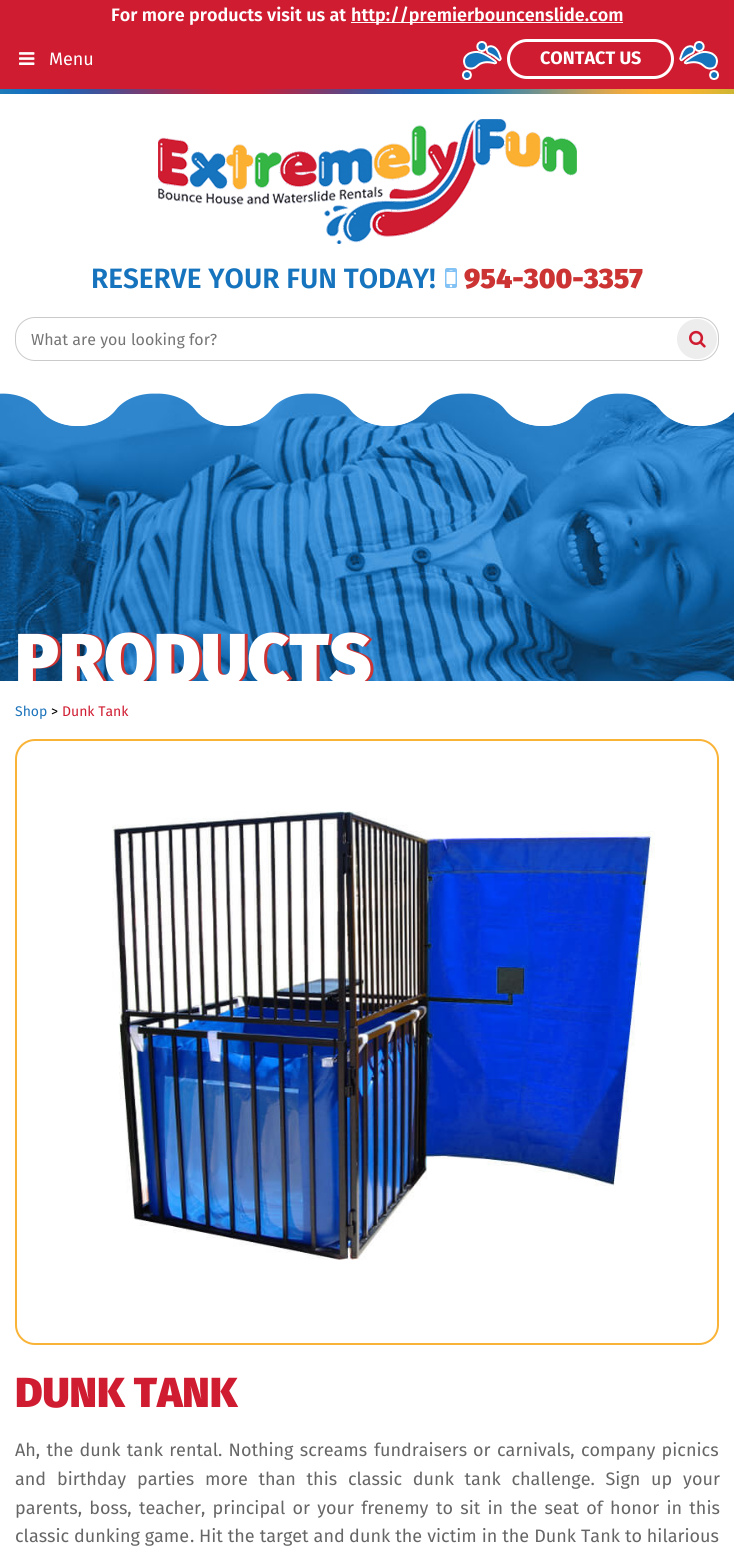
import math
import cairo

surface = cairo.ImageSurface(cairo.FORMAT_RGB24, 734, 1559)
ctx = cairo.Context(surface)
options = cairo.FontOptions()
options.set_hint_metrics(cairo.HINT_METRICS_OFF)
options.set_hint_style(cairo.HINT_STYLE_NONE)
ctx.set_font_options(options)
ctx.set_miter_limit(4)


def spaced_text(x, y, s, letter, word):
    ctx.move_to(x, y)
    for ch in s:
        ctx.show_text(ch)
        ctx.rel_move_to(letter + word * (ch == ' '), 0)


def round_rect(x, y, w, h, r):
    ctx.new_sub_path()
    for i, (u, v) in enumerate([(x + w - r, y + h - r), (x + r, y + h - r), (x + r, y + r), (x + w - r, y + r)]):
        ctx.arc(u, v, r, i * math.pi / 2, (i + 1) * math.pi / 2)
    ctx.close_path()


def picture(path, x, y, w, h):
    ctx.save()
    ctx.set_source_surface(cairo.ImageSurface.create_from_png(path), x, y)
    ctx.rectangle(x, y, w, h)
    ctx.fill()
    ctx.restore()


ctx.set_source_rgb(0.812, 0.11, 0.192)
ctx.paint()
ctx.select_font_face("Fira Sans SemiBold")
ctx.set_font_size(18)
ctx.set_source_rgb(1, 1, 1)
ctx.move_to(111, 21)
ctx.show_text("For more products visit us at")
ctx.rectangle(351, 22, 272, 1)
ctx.fill()
ctx.move_to(351, 21)
ctx.show_text("http://premierbouncenslide.com")
picture("img1.png", 19, 52, 16, 13)
ctx.select_font_face("Fira Sans")
ctx.move_to(49, 65)
ctx.show_text("Menu")
picture("img2.png", 462, 41, 40, 39)
round_rect(508.5, 40.5, 164, 37, 18.5)
ctx.set_line_width(3)
ctx.stroke()
ctx.select_font_face("Fira Sans", cairo.FONT_SLANT_NORMAL, cairo.FONT_WEIGHT_BOLD)
ctx.move_to(540, 64)
ctx.show_text("CONTACT US")
picture("img3.png", 679, 41, 40, 39)
picture("img4.png", 0, 89, 734, 5)
ctx.rectangle(0, 94, 734, 287)
ctx.fill()
picture("img5.png", 158, 119, 419, 125)
ctx.select_font_face("Fira Sans SemiBold")
ctx.set_font_size(28)
ctx.set_source_rgb(0.086, 0.451, 0.741)
ctx.move_to(91, 288)
ctx.show_text("RESERVE YOUR FUN TODAY!")
picture("img6.png", 445, 268, 12, 20)
ctx.select_font_face("Fira Sans Black")
ctx.set_source_rgb(0.8, 0.2, 0.2)
ctx.move_to(464, 288)
ctx.show_text("954-300-3357")
round_rect(15.5, 317.5, 703, 43, 19.5)
ctx.set_source_rgb(0.792, 0.792, 0.792)
ctx.set_line_width(1)
ctx.stroke()
ctx.select_font_face("Fira Sans")
ctx.set_font_size(16)
ctx.set_source_rgb(0.459, 0.459, 0.459)
ctx.move_to(31, 345)
ctx.show_text("What are you looking for?")
ctx.set_source_rgb(0.929, 0.929, 0.929)
ctx.new_path()
ctx.arc(697, 339, 20, 0, 2 * math.pi)
ctx.fill()
picture("img7.png", 689, 330, 17, 18)
ctx.set_source_rgb(1, 1, 1)
ctx.rectangle(0, 681, 734, 878)
ctx.fill()
picture("img8.png", 0, 393, 734, 288)
picture("img9.png", 0, 381, 734, 45)
ctx.save()
ctx.rectangle(0, 381, 734, 300)
ctx.clip()
ctx.select_font_face("Fira Sans Black")
ctx.set_font_size(72)
ctx.set_source_rgb(0.8, 0.2, 0.2)
ctx.move_to(18, 684)
ctx.show_text("PRODUCTS")
ctx.set_source_rgb(1, 1, 1)
ctx.move_to(15, 684)
ctx.show_text("PRODUCTS")
ctx.restore()
ctx.set_font_size(14)
ctx.set_source_rgb(0.114, 0.455, 0.733)
ctx.move_to(15, 716)
ctx.show_text("Shop")
ctx.set_source_rgb(0, 0, 0)
ctx.move_to(51, 716)
ctx.show_text(">")
ctx.set_source_rgb(0.812, 0.11, 0.192)
ctx.move_to(62, 716)
ctx.show_text("Dunk Tank")
round_rect(16, 740, 702, 604, 19)
ctx.set_source_rgb(0.976, 0.702, 0.216)
ctx.set_line_width(2)
ctx.stroke()
picture("img10.png", 112, 811, 543, 449)
ctx.select_font_face("Fira Sans Black")
ctx.set_font_size(42)
ctx.set_source_rgb(0.812, 0.11, 0.192)
ctx.move_to(15, 1407)
ctx.show_text("DUNK TANK")
ctx.select_font_face("Fira Sans")
ctx.set_font_size(18)
ctx.set_source_rgb(0.4, 0.4, 0.4)
spaced_text(15, 1456, "Ah, the dunk tank rental. Nothing screams", 0, 1.5)
ctx.move_to(374, 1456)
ctx.show_text("fundraisers")
ctx.move_to(473, 1456)
ctx.show_text("or")
spaced_text(497, 1456, "carnivals, company picnics", 0, 1.5)
ctx.move_to(15, 1485)
ctx.show_text("and")
spaced_text(57, 1485, "birthday parties", 0, 6)
spaced_text(205, 1485, "more than this classic dunk tank challenge. Sign up your", 0, 6)
spaced_text(15, 1514, "parents, boss, teacher, principal or your fr", 0, 2.5)
ctx.move_to(374, 1514)
ctx.show_text("enemy")
spaced_text(436, 1514, "to sit in the seat of honor in this", 0, 2.5)
ctx.move_to(15, 1542)
ctx.show_text("classic dunking game")
ctx.move_to(190, 1542)
ctx.show_text(".")
spaced_text(199, 1542, "Hit the target and", 0, 0.25)
ctx.move_to(349, 1542)
ctx.show_text("d")
spaced_text(360, 1542, "unk the victim in the Dunk Tank", 0, 0.25)
ctx.move_to(625, 1542)
ctx.show_text("to hilarious")
surface.write_to_png("page.png")
